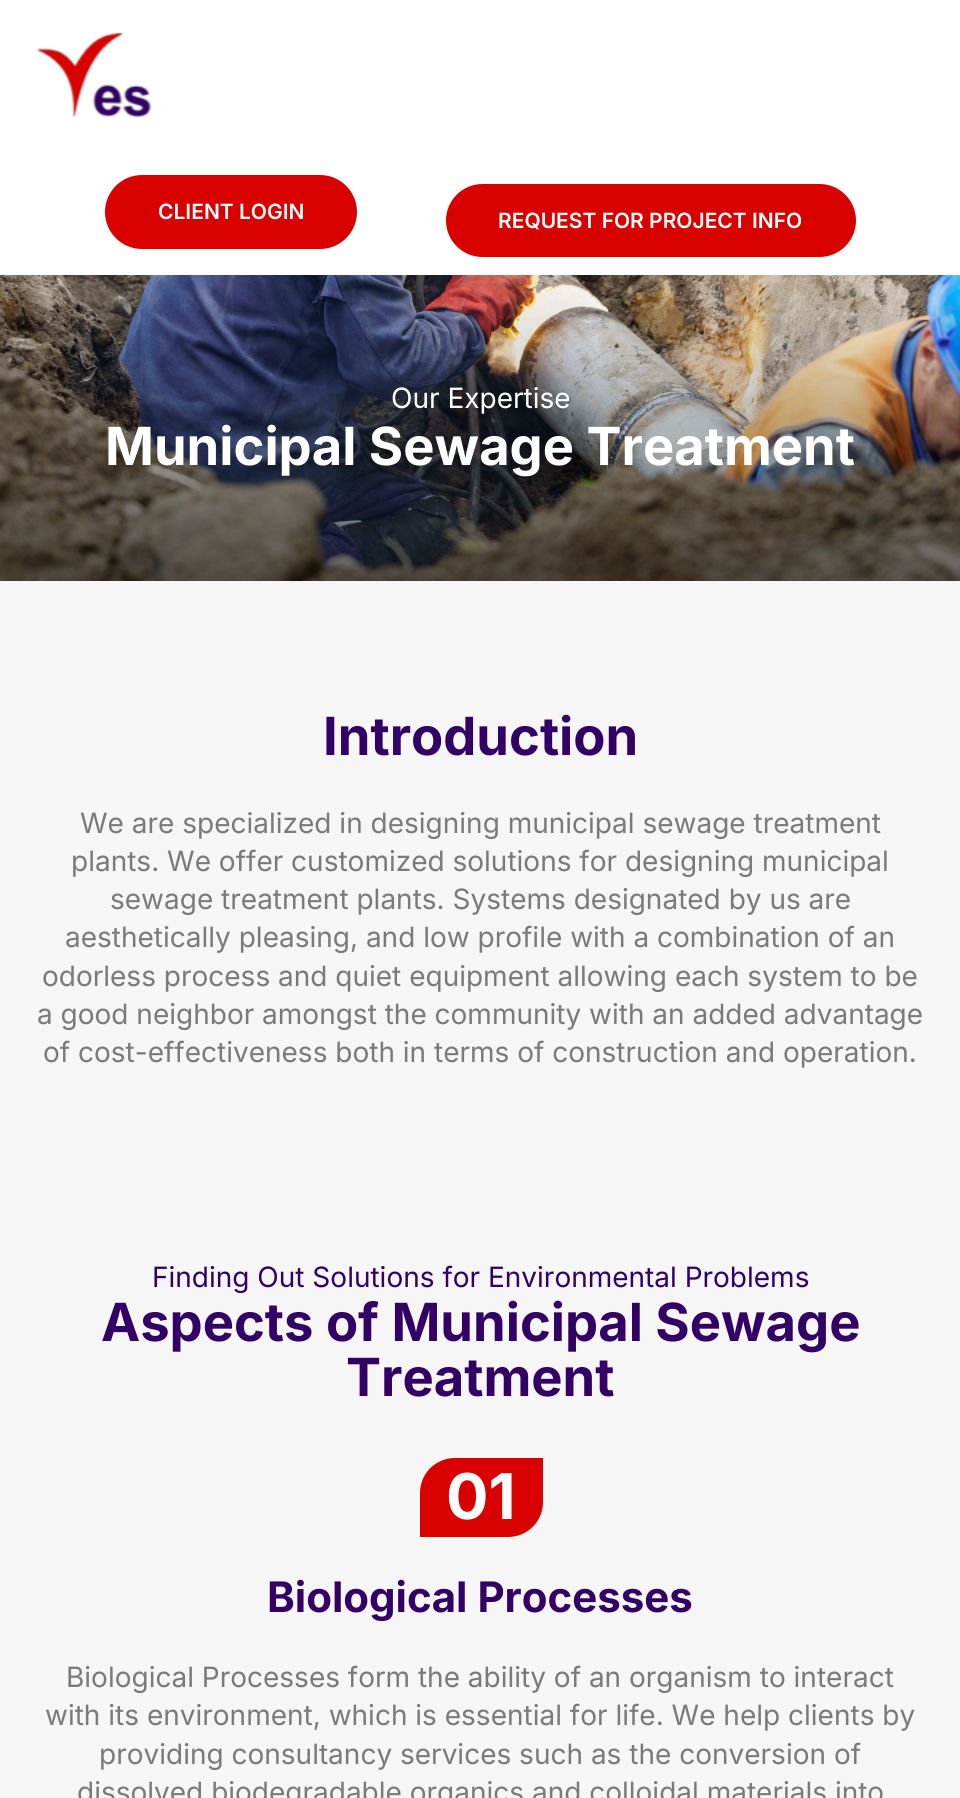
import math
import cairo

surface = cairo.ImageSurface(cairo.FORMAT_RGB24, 960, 1798)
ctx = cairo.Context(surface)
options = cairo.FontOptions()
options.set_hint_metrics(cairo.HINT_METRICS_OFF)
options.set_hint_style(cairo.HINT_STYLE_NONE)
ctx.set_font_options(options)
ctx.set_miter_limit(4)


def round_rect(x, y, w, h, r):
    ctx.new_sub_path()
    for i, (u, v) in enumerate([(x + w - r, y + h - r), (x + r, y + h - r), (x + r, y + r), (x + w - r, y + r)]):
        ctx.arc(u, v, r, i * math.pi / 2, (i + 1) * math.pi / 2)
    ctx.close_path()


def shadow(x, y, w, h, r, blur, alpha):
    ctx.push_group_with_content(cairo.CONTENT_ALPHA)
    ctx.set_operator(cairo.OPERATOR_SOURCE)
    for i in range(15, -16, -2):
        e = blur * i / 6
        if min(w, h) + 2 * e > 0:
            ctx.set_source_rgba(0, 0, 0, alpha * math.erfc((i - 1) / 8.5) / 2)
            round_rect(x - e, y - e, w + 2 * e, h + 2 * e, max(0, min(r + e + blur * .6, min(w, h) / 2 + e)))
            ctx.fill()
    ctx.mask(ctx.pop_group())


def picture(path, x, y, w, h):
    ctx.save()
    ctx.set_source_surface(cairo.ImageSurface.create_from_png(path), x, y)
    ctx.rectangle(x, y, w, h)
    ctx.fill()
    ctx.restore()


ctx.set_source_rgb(0.961, 0.961, 0.961)
ctx.paint()
picture("img2.png", 0, 275, 960, 306)
ctx.set_source_rgb(0, 0, 0)
shadow(35, 35, 891, 205, 0, 26, 0.5)
ctx.set_source_rgb(1, 1, 1)
ctx.rectangle(0, 0, 960, 275)
ctx.fill()
picture("img1.png", 37, 32, 115, 86)
ctx.set_source_rgb(0.851, 0, 0)
round_rect(105, 175, 252, 74, 37)
ctx.fill()
ctx.select_font_face("Inter SemiBold")
ctx.set_font_size(21)
ctx.set_source_rgb(1, 1, 1)
ctx.move_to(158, 219)
ctx.show_text("CLIENT LOGIN")
ctx.set_source_rgb(0.851, 0, 0)
round_rect(446, 184, 410, 73, 36.5)
ctx.fill()
ctx.set_source_rgb(1, 1, 1)
ctx.move_to(498, 228)
ctx.show_text("REQUEST FOR PROJECT INFO")
ctx.select_font_face("Inter")
ctx.set_font_size(28)
ctx.move_to(391, 408)
ctx.show_text("Our Expertise")
ctx.select_font_face("Inter", cairo.FONT_SLANT_NORMAL, cairo.FONT_WEIGHT_BOLD)
ctx.set_font_size(52.5)
ctx.move_to(105, 465)
ctx.show_text("Municipal Sewage Treatment")
ctx.set_source_rgb(0.2, 0, 0.4)
ctx.move_to(323, 755)
ctx.show_text("Introduction")
ctx.select_font_face("Inter")
ctx.set_font_size(28)
ctx.set_source_rgb(0.478, 0.478, 0.478)
ctx.move_to(80, 833)
ctx.show_text("We are specialized in designing municipal sewage treatment")
ctx.move_to(71, 871)
ctx.show_text("plants. We offer customized solutions for designing municipal")
ctx.move_to(110, 909)
ctx.show_text("sewage treatment plants. Systems designated by us are")
ctx.move_to(65, 947)
ctx.show_text("aesthetically pleasing, and low profile with a combination of an")
ctx.move_to(42, 986)
ctx.show_text("odorless process and quiet equipment allowing each system to be")
ctx.move_to(37, 1024)
ctx.show_text("a good neighbor amongst the community with an added advantage")
ctx.move_to(43, 1062)
ctx.show_text("of cost-effectiveness both in terms of construction and operation.")
ctx.set_source_rgb(0.2, 0, 0.4)
ctx.move_to(152, 1287)
ctx.show_text("Finding Out Solutions for Environmental Problems")
ctx.select_font_face("Inter", cairo.FONT_SLANT_NORMAL, cairo.FONT_WEIGHT_BOLD)
ctx.set_font_size(52.5)
ctx.move_to(101, 1341)
ctx.show_text("Aspects of Municipal Sewage")
ctx.move_to(346, 1396)
ctx.show_text("Treatment")
ctx.set_source_rgb(0.851, 0, 0)
ctx.new_path()
ctx.move_to(455, 1458)
ctx.line_to(543, 1458)
ctx.line_to(543, 1502)
ctx.curve_to(543, 1521.5, 527.5, 1537, 508, 1537)
ctx.line_to(420, 1537)
ctx.line_to(420, 1493)
ctx.curve_to(420, 1473.5, 435.5, 1458, 455, 1458)
ctx.close_path()
ctx.fill()
ctx.set_font_size(63)
ctx.set_source_rgb(1, 1, 1)
ctx.move_to(446, 1519)
ctx.show_text("01")
ctx.set_font_size(42)
ctx.set_source_rgb(0.2, 0, 0.4)
ctx.move_to(267, 1612)
ctx.show_text("Biological Processes")
ctx.select_font_face("Inter")
ctx.set_font_size(28)
ctx.set_source_rgb(0.478, 0.478, 0.478)
ctx.move_to(66, 1687)
ctx.show_text("Biological Processes form the ability of an organism to interact")
ctx.move_to(45, 1725)
ctx.show_text("with its environment, which is essential for life. We help clients by")
ctx.move_to(99, 1764)
ctx.show_text("providing consultancy services such as the conversion of")
ctx.move_to(77, 1802)
ctx.show_text("dissolved biodegradable organics and colloidal materials into")
surface.write_to_png("page.png")
